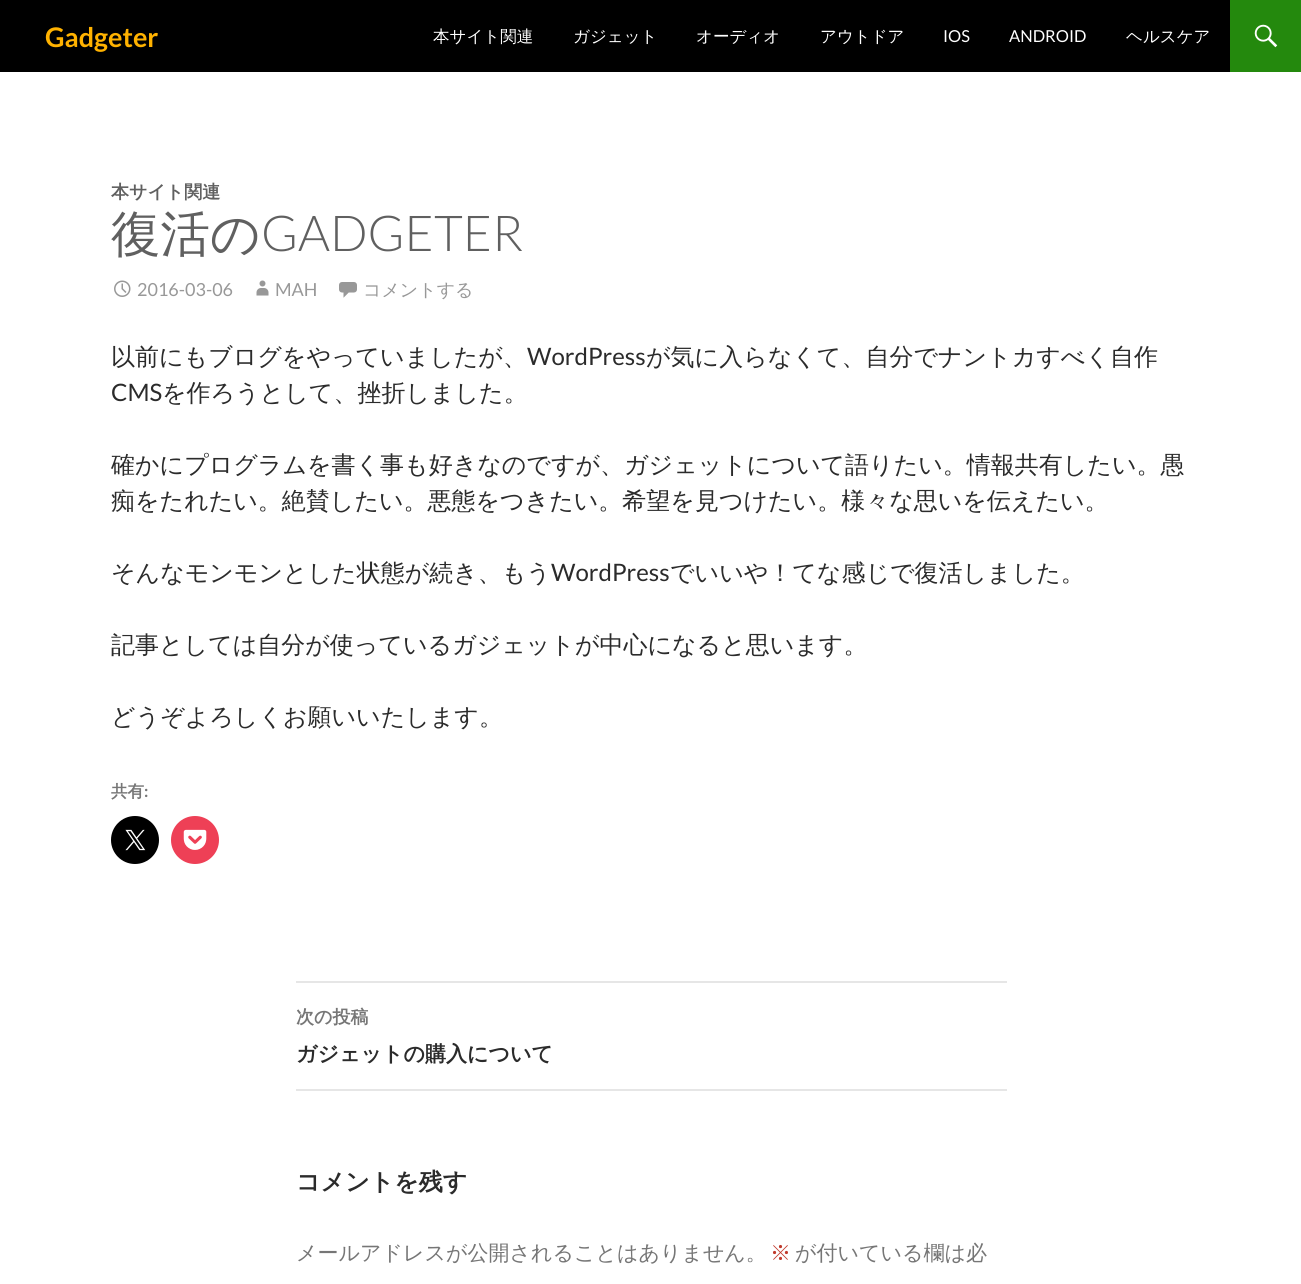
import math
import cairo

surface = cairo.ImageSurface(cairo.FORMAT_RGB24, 1301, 1284)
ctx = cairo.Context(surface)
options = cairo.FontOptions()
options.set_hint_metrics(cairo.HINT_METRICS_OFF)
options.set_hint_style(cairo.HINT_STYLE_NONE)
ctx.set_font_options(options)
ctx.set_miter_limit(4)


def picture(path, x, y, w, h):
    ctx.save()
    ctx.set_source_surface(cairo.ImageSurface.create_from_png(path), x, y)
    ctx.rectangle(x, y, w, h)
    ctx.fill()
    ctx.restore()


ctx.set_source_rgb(1, 1, 1)
ctx.paint()
ctx.set_source_rgb(0, 0, 0)
ctx.rectangle(0, 0, 1230, 72)
ctx.fill()
ctx.select_font_face("Lato", cairo.FONT_SLANT_NORMAL, cairo.FONT_WEIGHT_BOLD)
ctx.set_font_size(27)
ctx.set_source_rgb(1, 0.698, 0)
ctx.move_to(45, 47)
ctx.show_text("Gadgeter")
ctx.select_font_face("WenQuanYi Zen Hei Medium")
ctx.set_font_size(16.5)
ctx.set_source_rgb(1, 1, 1)
ctx.move_to(433, 42)
ctx.show_text("本サイト関連")
ctx.move_to(573, 42)
ctx.show_text("ガジェット")
ctx.move_to(696, 42)
ctx.show_text("オーディオ")
ctx.move_to(820, 42)
ctx.show_text("アウトドア")
ctx.select_font_face("Lato")
ctx.move_to(943, 42)
ctx.show_text("IOS")
ctx.move_to(1009, 42)
ctx.show_text("ANDROID")
ctx.select_font_face("WenQuanYi Zen Hei Medium")
ctx.move_to(1126, 42)
ctx.show_text("ヘルスケア")
ctx.set_source_rgb(0.141, 0.537, 0.051)
ctx.rectangle(1230, 0, 71, 72)
ctx.fill()
picture("img1.png", 1254, 24, 24, 24)
ctx.select_font_face("WenQuanYi Zen Hei", cairo.FONT_SLANT_NORMAL, cairo.FONT_WEIGHT_BOLD)
ctx.set_font_size(18)
ctx.set_source_rgb(0.376, 0.376, 0.376)
ctx.move_to(111, 198)
ctx.show_text("本サイト関連")
ctx.select_font_face("WenQuanYi Zen Hei Medium")
ctx.set_font_size(49.5)
ctx.move_to(111, 251)
ctx.show_text("復活の")
ctx.select_font_face("Lato Light")
ctx.move_to(261, 251)
ctx.show_text("GADGETER")
picture("img2.png", 114, 280, 17, 17)
ctx.select_font_face("Lato")
ctx.set_font_size(18)
ctx.set_source_rgb(0.596, 0.596, 0.596)
ctx.move_to(137, 296)
ctx.show_text("2016-03-06")
picture("img3.png", 256, 280, 13, 16)
ctx.move_to(275, 296)
ctx.show_text("MAH")
picture("img4.png", 339, 282, 18, 16)
ctx.select_font_face("WenQuanYi Zen Hei Medium")
ctx.move_to(363, 296)
ctx.show_text("コメントする")
ctx.set_font_size(24)
ctx.set_source_rgb(0.169, 0.169, 0.169)
ctx.move_to(111, 365)
ctx.show_text("以前にもブログをやっていましたが、")
ctx.select_font_face("Lato")
ctx.move_to(527, 365)
ctx.show_text("WordPress")
ctx.select_font_face("WenQuanYi Zen Hei Medium")
ctx.move_to(646, 365)
ctx.show_text("が気に入らなくて、自分でナントカすべく自作")
ctx.select_font_face("Lato")
ctx.move_to(111, 401)
ctx.show_text("CMS")
ctx.select_font_face("WenQuanYi Zen Hei Medium")
ctx.move_to(162, 401)
ctx.show_text("を作ろうとして、挫折しました。")
ctx.move_to(111, 473)
ctx.show_text("確かにプログラムを書く事も好きなのですが、ガジェットについて語りたい。情報共有したい。愚")
ctx.move_to(111, 509)
ctx.show_text("痴をたれたい。絶賛したい。悪態をつきたい。希望を見つけたい。様々な思いを伝えたい。")
ctx.move_to(111, 581)
ctx.show_text("そんなモンモンとした状態が続き、もう")
ctx.select_font_face("Lato")
ctx.move_to(551, 581)
ctx.show_text("WordPress")
ctx.select_font_face("WenQuanYi Zen Hei Medium")
ctx.move_to(670, 581)
ctx.show_text("でいいや！てな感じで復活しました。")
ctx.move_to(111, 653)
ctx.show_text("記事としては自分が使っているガジェットが中心になると思います。")
ctx.move_to(111, 725)
ctx.show_text("どうぞよろしくお願いいたします。")
ctx.select_font_face("WenQuanYi Zen Hei", cairo.FONT_SLANT_NORMAL, cairo.FONT_WEIGHT_BOLD)
ctx.set_font_size(16.5)
ctx.set_source_rgb(0.463, 0.463, 0.463)
ctx.move_to(111, 797)
ctx.show_text("共有")
ctx.select_font_face("Lato", cairo.FONT_SLANT_NORMAL, cairo.FONT_WEIGHT_BOLD)
ctx.move_to(144, 797)
ctx.show_text(":")
ctx.set_source_rgb(0, 0, 0)
ctx.new_path()
ctx.arc(135, 840, 24, 0, 2 * math.pi)
ctx.fill()
picture("img5.png", 125, 829, 21, 22)
ctx.set_source_rgb(0.933, 0.251, 0.337)
ctx.arc(195, 840, 24, 0, 2 * math.pi)
ctx.fill()
picture("img6.png", 183, 829, 24, 21)
ctx.set_source_rgb(0.902, 0.902, 0.902)
ctx.rectangle(296, 981, 711, 2)
ctx.fill()
ctx.rectangle(296, 1089, 711, 2)
ctx.fill()
ctx.select_font_face("WenQuanYi Zen Hei", cairo.FONT_SLANT_NORMAL, cairo.FONT_WEIGHT_BOLD)
ctx.set_font_size(18)
ctx.set_source_rgb(0.463, 0.463, 0.463)
ctx.move_to(296, 1023)
ctx.show_text("次の投稿")
ctx.set_font_size(21)
ctx.set_source_rgb(0.169, 0.169, 0.169)
ctx.move_to(296, 1061)
ctx.show_text("ガジェットの購入について")
ctx.set_font_size(24)
ctx.move_to(296, 1190)
ctx.show_text("コメントを残す")
ctx.select_font_face("WenQuanYi Zen Hei Medium")
ctx.set_font_size(21)
ctx.set_source_rgb(0.463, 0.463, 0.463)
ctx.move_to(296, 1260)
ctx.show_text("メールアドレスが公開されることはありません。")
ctx.set_source_rgb(0.753, 0.224, 0.169)
ctx.move_to(770, 1260)
ctx.show_text("※")
ctx.set_source_rgb(0.463, 0.463, 0.463)
ctx.move_to(795, 1260)
ctx.show_text("が付いている欄は必")
surface.write_to_png("page.png")
